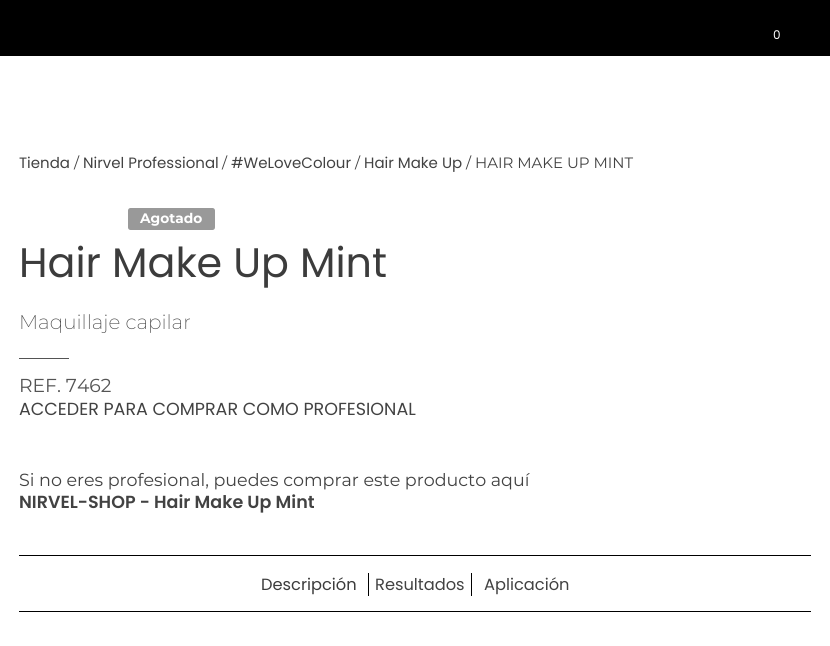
import math
import cairo

surface = cairo.ImageSurface(cairo.FORMAT_RGB24, 830, 646)
ctx = cairo.Context(surface)
options = cairo.FontOptions()
options.set_hint_metrics(cairo.HINT_METRICS_OFF)
options.set_hint_style(cairo.HINT_STYLE_NONE)
ctx.set_font_options(options)
ctx.set_miter_limit(4)


def round_rect(x, y, w, h, r):
    ctx.new_sub_path()
    for i, (u, v) in enumerate([(x + w - r, y + h - r), (x + r, y + h - r), (x + r, y + r), (x + w - r, y + r)]):
        ctx.arc(u, v, r, i * math.pi / 2, (i + 1) * math.pi / 2)
    ctx.close_path()


ctx.set_source_rgb(1, 1, 1)
ctx.paint()
ctx.set_source_rgb(0, 0, 0)
ctx.rectangle(0, 0, 830, 56)
ctx.fill()
ctx.select_font_face("Poppins")
ctx.set_font_size(12)
ctx.set_source_rgb(1, 1, 1)
ctx.move_to(773, 39)
ctx.show_text("0")
ctx.set_font_size(15)
ctx.set_source_rgb(0.259, 0.259, 0.259)
ctx.move_to(19, 168)
ctx.show_text("Tienda")
ctx.select_font_face("Montserrat")
ctx.move_to(74, 168)
ctx.show_text("/")
ctx.select_font_face("Poppins")
ctx.move_to(83, 168)
ctx.show_text("Nirvel Professional")
ctx.select_font_face("Montserrat")
ctx.move_to(222, 168)
ctx.show_text("/")
ctx.select_font_face("Poppins")
ctx.move_to(231, 168)
ctx.show_text("#WeLoveColour")
ctx.select_font_face("Montserrat")
ctx.move_to(355, 168)
ctx.show_text("/")
ctx.select_font_face("Poppins")
ctx.move_to(364, 168)
ctx.show_text("Hair Make Up")
ctx.select_font_face("Montserrat")
ctx.move_to(466, 168)
ctx.show_text("/ HAIR MAKE UP MINT")
ctx.set_source_rgb(0.6, 0.6, 0.6)
round_rect(128, 208, 87, 22, 2.5)
ctx.fill()
ctx.select_font_face("Montserrat", cairo.FONT_SLANT_NORMAL, cairo.FONT_WEIGHT_BOLD)
ctx.set_font_size(13.75)
ctx.set_source_rgb(1, 1, 1)
ctx.move_to(140, 223)
ctx.show_text("Agotado")
ctx.select_font_face("Poppins")
ctx.set_font_size(41.25)
ctx.set_source_rgb(0.235, 0.235, 0.235)
ctx.move_to(19, 277)
ctx.show_text("Hair Make Up Mint")
ctx.select_font_face("Montserrat ExtraLight")
ctx.set_font_size(20)
ctx.set_source_rgb(0.259, 0.259, 0.259)
ctx.move_to(19, 329)
ctx.show_text("Maquillaje capilar")
ctx.set_source_rgb(0.329, 0.329, 0.329)
ctx.rectangle(19, 358, 50, 1)
ctx.fill()
ctx.select_font_face("Montserrat")
ctx.set_font_size(18.75)
ctx.move_to(19, 392)
ctx.show_text("REF. 7462")
ctx.select_font_face("Poppins")
ctx.set_font_size(17.5)
ctx.set_source_rgb(0.259, 0.259, 0.259)
ctx.move_to(19, 415)
ctx.show_text("ACCEDER PARA COMPRAR COMO PROFESIONAL")
ctx.select_font_face("Montserrat")
ctx.move_to(19, 486)
ctx.show_text("Si no eres profesional, puedes comprar este producto aquí")
ctx.select_font_face("Poppins SemiBold")
ctx.move_to(19, 508)
ctx.show_text("NIRVEL-SHOP - Hair Make Up Mint")
ctx.set_source_rgb(0, 0, 0)
ctx.rectangle(19, 555, 792, 1)
ctx.fill()
ctx.rectangle(19, 611, 792, 1)
ctx.fill()
ctx.select_font_face("Poppins")
ctx.set_font_size(16.25)
ctx.set_source_rgb(0.235, 0.235, 0.235)
ctx.move_to(261, 590)
ctx.show_text("Descripción")
ctx.set_source_rgb(0.259, 0.259, 0.259)
ctx.move_to(375, 590)
ctx.show_text("Resultados")
ctx.set_source_rgb(0, 0, 0)
ctx.rectangle(471, 573, 1, 23)
ctx.fill()
ctx.rectangle(368, 573, 1, 23)
ctx.fill()
ctx.set_source_rgb(0.259, 0.259, 0.259)
ctx.move_to(484, 590)
ctx.show_text("Aplicación")
surface.write_to_png("page.png")
